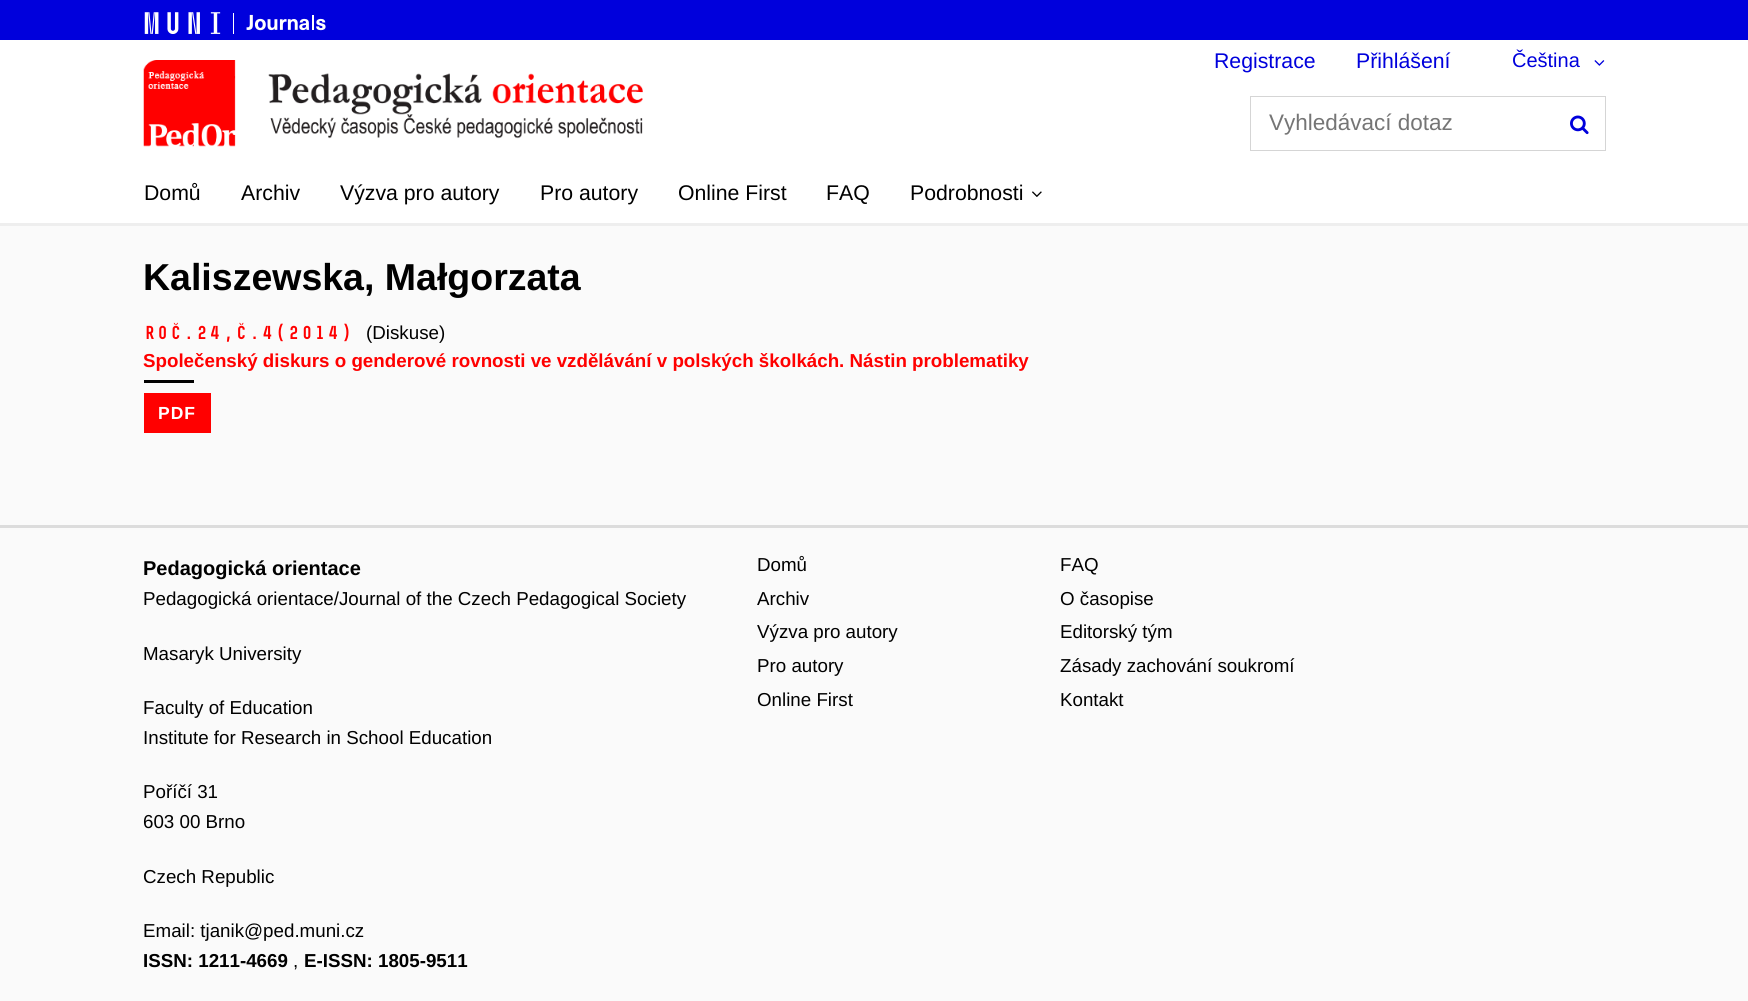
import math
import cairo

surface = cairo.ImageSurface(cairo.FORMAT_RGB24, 1748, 1001)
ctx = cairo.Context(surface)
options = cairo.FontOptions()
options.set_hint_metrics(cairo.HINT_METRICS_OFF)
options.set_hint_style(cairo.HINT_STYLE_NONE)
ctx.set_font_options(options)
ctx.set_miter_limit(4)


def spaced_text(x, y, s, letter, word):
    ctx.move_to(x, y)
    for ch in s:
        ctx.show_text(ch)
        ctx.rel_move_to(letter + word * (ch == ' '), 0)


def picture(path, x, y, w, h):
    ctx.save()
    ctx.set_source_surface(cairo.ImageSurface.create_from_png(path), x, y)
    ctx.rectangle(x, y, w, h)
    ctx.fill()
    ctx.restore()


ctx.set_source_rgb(0.98, 0.98, 0.98)
ctx.paint()
ctx.set_source_rgb(1, 1, 1)
ctx.rectangle(0, 40, 1748, 183)
ctx.fill()
ctx.set_source_rgb(0, 0, 0.863)
ctx.rectangle(0, 0, 1748, 40)
ctx.fill()
picture("img1.png", 144, 12, 182, 22)
picture("img2.png", 143, 60, 500, 87)
ctx.select_font_face("Liberation Sans")
ctx.set_font_size(21.25)
ctx.move_to(1214, 68)
ctx.show_text("Registrace")
ctx.move_to(1356, 68)
ctx.show_text("Přihlášení")
ctx.set_font_size(20)
ctx.move_to(1512, 67)
ctx.show_text("Čeština")
picture("img3.png", 1594, 60, 11, 6)
ctx.rectangle(1250.5, 96.5, 355, 54)
ctx.set_source_rgb(0.835, 0.835, 0.835)
ctx.set_line_width(1)
ctx.stroke()
ctx.set_font_size(22.5)
ctx.set_source_rgb(0.459, 0.459, 0.459)
ctx.move_to(1269, 130)
ctx.show_text("Vyhledávací dotaz")
picture("img4.png", 1570, 115, 19, 20)
ctx.set_source_rgb(0.933, 0.933, 0.933)
ctx.rectangle(0, 223, 1748, 3)
ctx.fill()
ctx.set_font_size(21.25)
ctx.set_source_rgb(0, 0, 0)
ctx.move_to(144, 200)
ctx.show_text("Domů")
ctx.move_to(241, 200)
ctx.show_text("Archiv")
ctx.move_to(340, 200)
ctx.show_text("Výzva pro autory")
ctx.move_to(540, 200)
ctx.show_text("Pro autory")
ctx.move_to(678, 200)
ctx.show_text("Online First")
ctx.move_to(826, 200)
ctx.show_text("FAQ")
ctx.move_to(910, 200)
ctx.show_text("Podrobnosti")
picture("img5.png", 1032, 191, 10, 6)
ctx.select_font_face("Liberation Sans", cairo.FONT_SLANT_NORMAL, cairo.FONT_WEIGHT_BOLD)
ctx.set_font_size(37.5)
ctx.move_to(143, 290)
ctx.show_text("Kaliszewska, Małgorzata")
ctx.select_font_face("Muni", cairo.FONT_SLANT_NORMAL, cairo.FONT_WEIGHT_BOLD)
ctx.set_font_size(18.75)
ctx.set_source_rgb(1, 0, 0)
ctx.move_to(143, 339)
ctx.show_text("Roč.24,č.4(2014)")
ctx.select_font_face("Liberation Sans")
ctx.set_source_rgb(0, 0, 0)
ctx.move_to(366, 339)
ctx.show_text("(Diskuse)")
ctx.select_font_face("Liberation Sans", cairo.FONT_SLANT_NORMAL, cairo.FONT_WEIGHT_BOLD)
ctx.set_source_rgb(1, 0, 0)
ctx.move_to(143, 367)
ctx.show_text("Společenský diskurs o genderové rovnosti ve vzdělávání v polských školkách. Nástin problematiky")
ctx.set_source_rgb(0, 0, 0)
ctx.rectangle(144, 380, 50, 3)
ctx.fill()
ctx.set_source_rgb(1, 0, 0)
ctx.rectangle(144, 393, 67, 40)
ctx.fill()
ctx.set_font_size(17.5)
ctx.set_source_rgb(1, 1, 1)
spaced_text(158, 419, "PDF", 1, 0)
ctx.set_source_rgb(0.863, 0.863, 0.863)
ctx.rectangle(0, 525, 1748, 3)
ctx.fill()
ctx.set_font_size(20)
ctx.set_source_rgb(0, 0, 0)
ctx.move_to(143, 575)
ctx.show_text("Pedagogická orientace")
ctx.select_font_face("Liberation Sans")
ctx.set_font_size(18.75)
ctx.move_to(143, 605)
ctx.show_text("Pedagogická orientace/Journal of the Czech Pedagogical Society")
ctx.move_to(143, 660)
ctx.show_text("Masaryk University")
ctx.move_to(143, 714)
ctx.show_text("Faculty of Education")
ctx.move_to(143, 744)
ctx.show_text("Institute for Research in School Education")
ctx.move_to(143, 798)
ctx.show_text("Poříčí 31")
ctx.move_to(143, 828)
ctx.show_text("603 00 Brno")
ctx.move_to(143, 883)
ctx.show_text("Czech Republic")
ctx.move_to(143, 937)
ctx.show_text("Email: tjanik@ped.muni.cz")
ctx.select_font_face("Liberation Sans", cairo.FONT_SLANT_NORMAL, cairo.FONT_WEIGHT_BOLD)
ctx.move_to(143, 967)
ctx.show_text("ISSN: 1211-4669")
ctx.select_font_face("Liberation Sans")
ctx.move_to(293, 967)
ctx.show_text(",")
ctx.select_font_face("Liberation Sans", cairo.FONT_SLANT_NORMAL, cairo.FONT_WEIGHT_BOLD)
ctx.move_to(304, 967)
ctx.show_text("E-ISSN: 1805-9511")
ctx.select_font_face("Liberation Sans")
ctx.move_to(757, 571)
ctx.show_text("Domů")
ctx.move_to(1060, 571)
ctx.show_text("FAQ")
ctx.move_to(757, 605)
ctx.show_text("Archiv")
ctx.move_to(1060, 605)
ctx.show_text("O časopise")
ctx.move_to(757, 638)
ctx.show_text("Výzva pro autory")
ctx.move_to(1060, 638)
ctx.show_text("Editorský tým")
ctx.move_to(757, 672)
ctx.show_text("Pro autory")
ctx.move_to(1060, 672)
ctx.show_text("Zásady zachování soukromí")
ctx.move_to(757, 706)
ctx.show_text("Online First")
ctx.move_to(1060, 706)
ctx.show_text("Kontakt")
surface.write_to_png("page.png")
